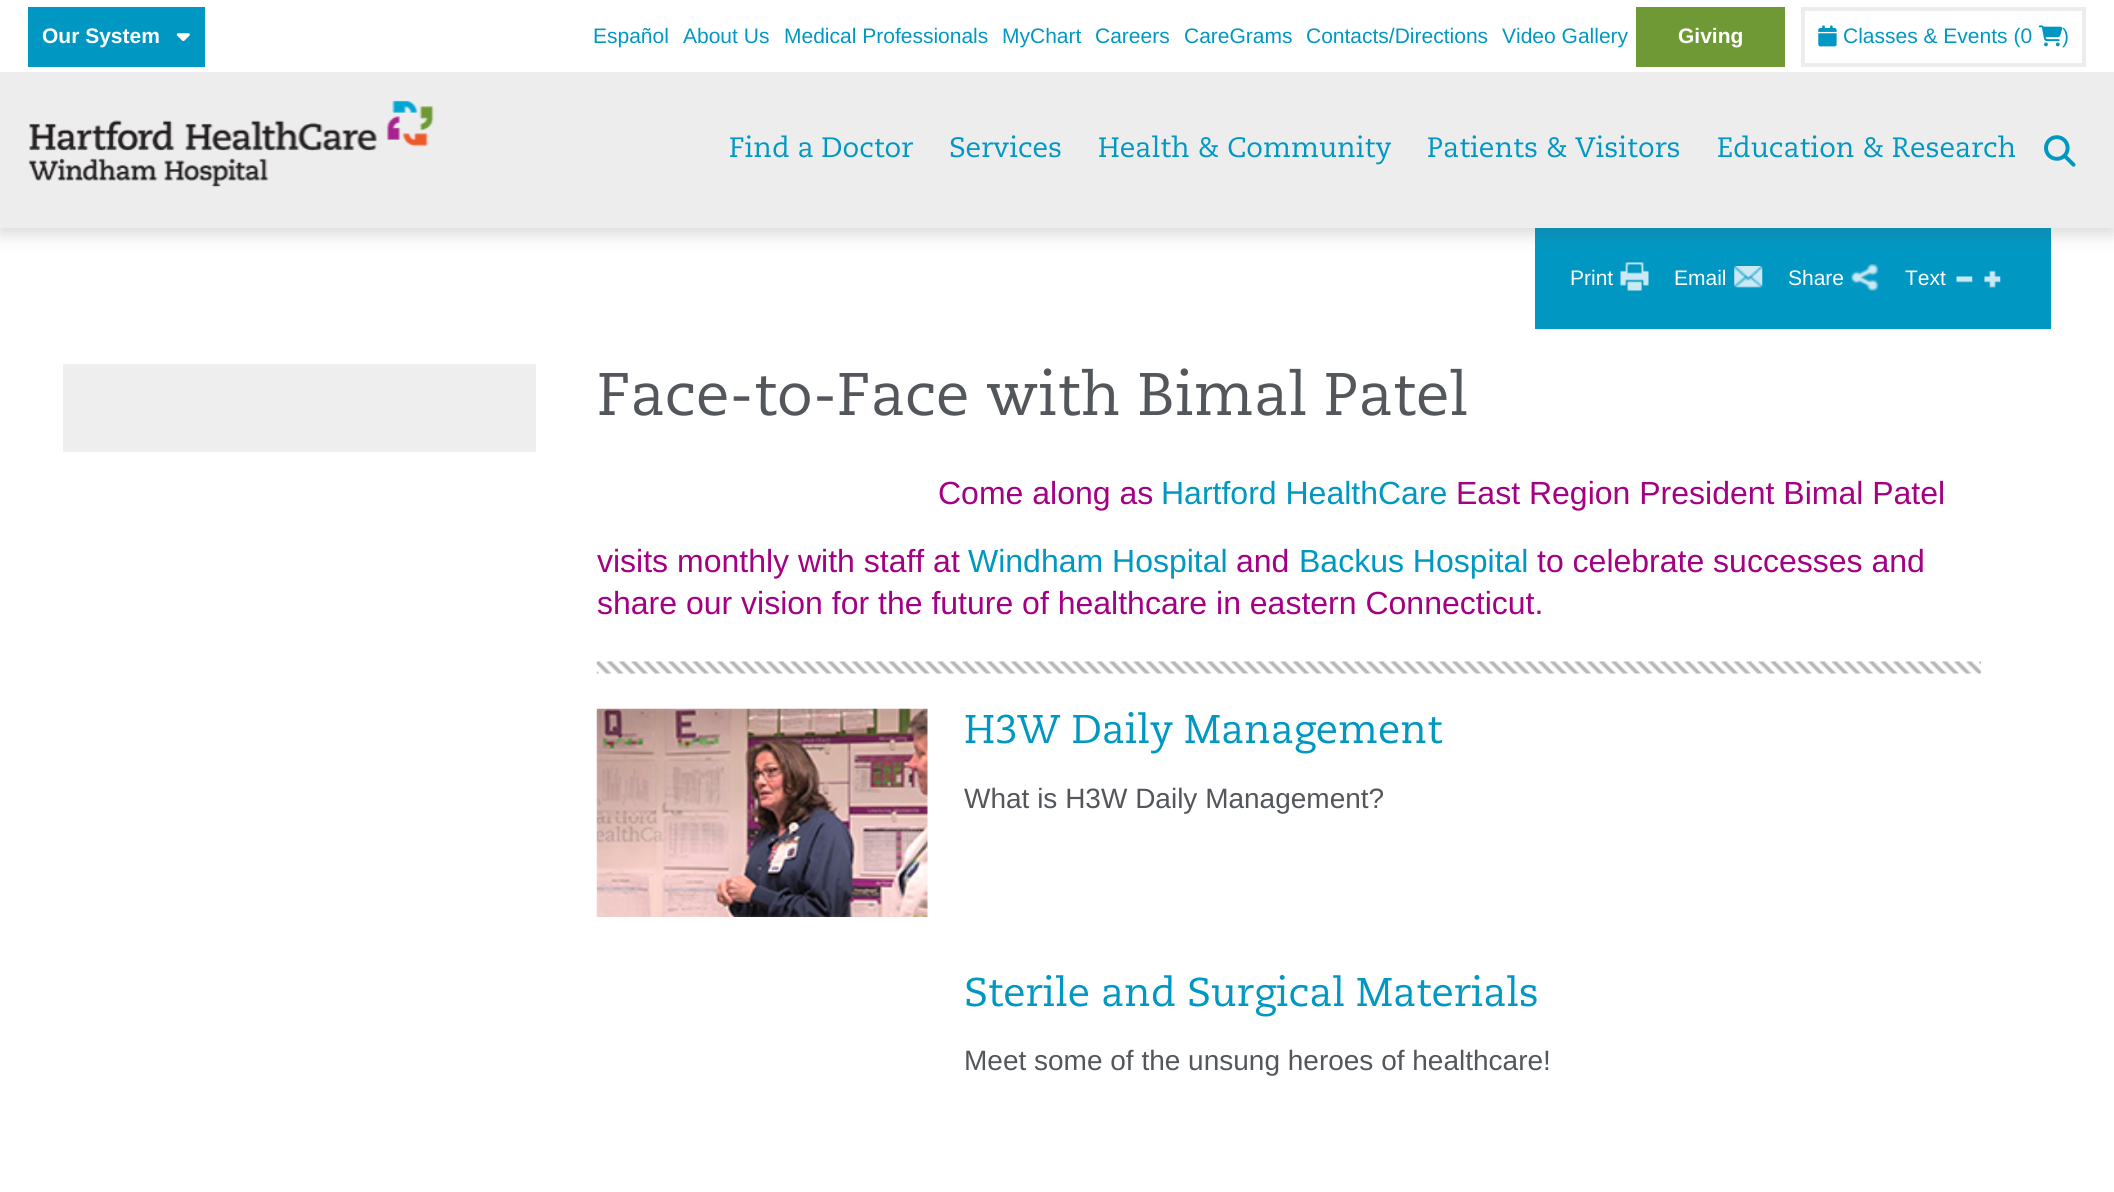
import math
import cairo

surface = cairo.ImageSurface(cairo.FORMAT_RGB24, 2114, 1192)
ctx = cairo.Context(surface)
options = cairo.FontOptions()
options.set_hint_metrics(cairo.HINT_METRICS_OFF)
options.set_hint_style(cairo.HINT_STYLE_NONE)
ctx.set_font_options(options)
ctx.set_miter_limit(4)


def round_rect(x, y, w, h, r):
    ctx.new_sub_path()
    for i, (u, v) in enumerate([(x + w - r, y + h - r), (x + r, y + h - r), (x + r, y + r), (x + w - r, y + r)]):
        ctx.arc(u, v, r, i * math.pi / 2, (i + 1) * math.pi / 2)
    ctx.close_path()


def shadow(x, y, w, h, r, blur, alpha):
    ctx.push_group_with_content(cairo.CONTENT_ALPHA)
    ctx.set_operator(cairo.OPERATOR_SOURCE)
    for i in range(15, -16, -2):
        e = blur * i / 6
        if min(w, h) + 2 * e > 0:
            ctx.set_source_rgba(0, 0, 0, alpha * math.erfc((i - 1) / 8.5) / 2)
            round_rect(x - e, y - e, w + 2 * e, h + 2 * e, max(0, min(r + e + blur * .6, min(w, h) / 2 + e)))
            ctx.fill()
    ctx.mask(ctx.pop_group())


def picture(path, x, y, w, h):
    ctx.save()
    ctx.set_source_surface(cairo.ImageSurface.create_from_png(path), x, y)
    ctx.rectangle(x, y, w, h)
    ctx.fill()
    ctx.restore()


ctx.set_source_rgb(1, 1, 1)
ctx.paint()
ctx.set_source_rgb(0, 0.596, 0.765)
ctx.rectangle(1535, 228, 516, 101)
ctx.fill()
ctx.set_source_rgb(0.325, 0.337, 0.353)
shadow(0, 5, 2114, 228, 0, 9, 0.25)
ctx.set_source_rgb(1, 1, 1)
ctx.rectangle(0, 0, 2114, 72)
ctx.fill()
ctx.set_source_rgb(0, 0.596, 0.765)
ctx.rectangle(28, 7, 177, 60)
ctx.fill()
ctx.select_font_face("Liberation Sans", cairo.FONT_SLANT_NORMAL, cairo.FONT_WEIGHT_BOLD)
ctx.set_font_size(21)
ctx.set_source_rgb(1, 1, 1)
ctx.move_to(42, 43)
ctx.show_text("Our System")
picture("img1.png", 176, 33, 14, 9)
ctx.select_font_face("Liberation Sans")
ctx.set_source_rgb(0, 0.596, 0.765)
ctx.move_to(593, 43)
ctx.show_text("Español")
ctx.move_to(683, 43)
ctx.show_text("About Us")
ctx.move_to(784, 43)
ctx.show_text("Medical Professionals")
ctx.move_to(1002, 43)
ctx.show_text("MyChart")
ctx.move_to(1095, 43)
ctx.show_text("Careers")
ctx.move_to(1184, 43)
ctx.show_text("CareGrams")
ctx.move_to(1306, 43)
ctx.show_text("Contacts/Directions")
ctx.move_to(1502, 43)
ctx.show_text("Video Gallery")
ctx.set_source_rgb(0.431, 0.6, 0.204)
ctx.rectangle(1636, 7, 149, 60)
ctx.fill()
ctx.select_font_face("Liberation Sans", cairo.FONT_SLANT_NORMAL, cairo.FONT_WEIGHT_BOLD)
ctx.set_source_rgb(1, 1, 1)
ctx.move_to(1678, 43)
ctx.show_text("Giving")
ctx.rectangle(1803, 9, 281, 56)
ctx.set_source_rgb(0.929, 0.929, 0.929)
ctx.set_line_width(4)
ctx.stroke()
picture("img2.png", 1818, 25, 19, 22)
ctx.select_font_face("Liberation Sans")
ctx.set_source_rgb(0, 0.596, 0.765)
ctx.move_to(1843, 43)
ctx.show_text("Classes & Events (0")
picture("img3.png", 2038, 25, 25, 22)
ctx.move_to(2062, 43)
ctx.show_text(")")
ctx.set_source_rgb(0.929, 0.929, 0.929)
ctx.rectangle(0, 72, 2114, 156)
ctx.fill()
picture("img4.png", 28, 100, 406, 87)
ctx.select_font_face("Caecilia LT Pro")
ctx.set_font_size(28)
ctx.set_source_rgb(0, 0.596, 0.765)
ctx.move_to(729, 157)
ctx.show_text("Find a Doctor")
ctx.move_to(949, 157)
ctx.show_text("Services")
ctx.move_to(1098, 157)
ctx.show_text("Health & Community")
ctx.move_to(1427, 157)
ctx.show_text("Patients & Visitors")
ctx.move_to(1717, 157)
ctx.show_text("Education & Research")
picture("img5.png", 2044, 135, 32, 32)
picture("img6.png", 1620, 262, 29, 29)
ctx.select_font_face("Liberation Sans")
ctx.set_font_size(21)
ctx.set_source_rgb(1, 1, 1)
ctx.move_to(1570, 285)
ctx.show_text("Print")
picture("img7.png", 1734, 266, 29, 22)
ctx.move_to(1674, 285)
ctx.show_text("Email")
picture("img8.png", 1851, 263, 28, 28)
ctx.move_to(1788, 285)
ctx.show_text("Share")
ctx.move_to(1905, 285)
ctx.show_text("Text")
picture("img9.png", 1956, 276, 17, 7)
picture("img10.png", 1984, 270, 17, 18)
ctx.set_source_rgb(0.933, 0.933, 0.933)
ctx.rectangle(63, 364, 473, 88)
ctx.fill()
ctx.select_font_face("Caecilia LT Pro")
ctx.set_font_size(60)
ctx.set_source_rgb(0.325, 0.337, 0.353)
ctx.move_to(597, 415)
ctx.show_text("Face-to-Face with Bimal Patel")
ctx.select_font_face("Liberation Sans")
ctx.set_font_size(32)
ctx.set_source_rgb(0.643, 0, 0.518)
ctx.move_to(938, 504)
ctx.show_text("Come along as")
ctx.set_source_rgb(0, 0.596, 0.765)
ctx.move_to(1161, 504)
ctx.show_text("Hartford HealthCare")
ctx.set_source_rgb(0.643, 0, 0.518)
ctx.move_to(1456, 504)
ctx.show_text("East Region President Bimal Patel")
ctx.move_to(597, 572)
ctx.show_text("visits monthly with staff at")
ctx.set_source_rgb(0, 0.596, 0.765)
ctx.move_to(968, 572)
ctx.show_text("Windham Hospital")
ctx.set_source_rgb(0.643, 0, 0.518)
ctx.move_to(1236, 572)
ctx.show_text("and")
ctx.set_source_rgb(0, 0.596, 0.765)
ctx.move_to(1299, 572)
ctx.show_text("Backus Hospital")
ctx.set_source_rgb(0.643, 0, 0.518)
ctx.move_to(1537, 572)
ctx.show_text("to celebrate successes and")
ctx.move_to(597, 614)
ctx.show_text("share our vision for the future of healthcare in eastern Connecticut.")
picture("img11.png", 596, 661, 1385, 13)
picture("img12.png", 596, 708, 332, 209)
ctx.select_font_face("Caecilia LT Pro")
ctx.set_font_size(40)
ctx.set_source_rgb(0, 0.596, 0.765)
ctx.move_to(964, 743)
ctx.show_text("H3W Daily Management")
ctx.select_font_face("Liberation Sans")
ctx.set_font_size(28)
ctx.set_source_rgb(0.325, 0.337, 0.353)
ctx.move_to(964, 808)
ctx.show_text("What is H3W Daily Management?")
ctx.select_font_face("Caecilia LT Pro")
ctx.set_font_size(40)
ctx.set_source_rgb(0, 0.596, 0.765)
ctx.move_to(964, 1006)
ctx.show_text("Sterile and Surgical Materials")
ctx.select_font_face("Liberation Sans")
ctx.set_font_size(28)
ctx.set_source_rgb(0.325, 0.337, 0.353)
ctx.move_to(964, 1070)
ctx.show_text("Meet some of the unsung heroes of healthcare!")
surface.write_to_png("page.png")
